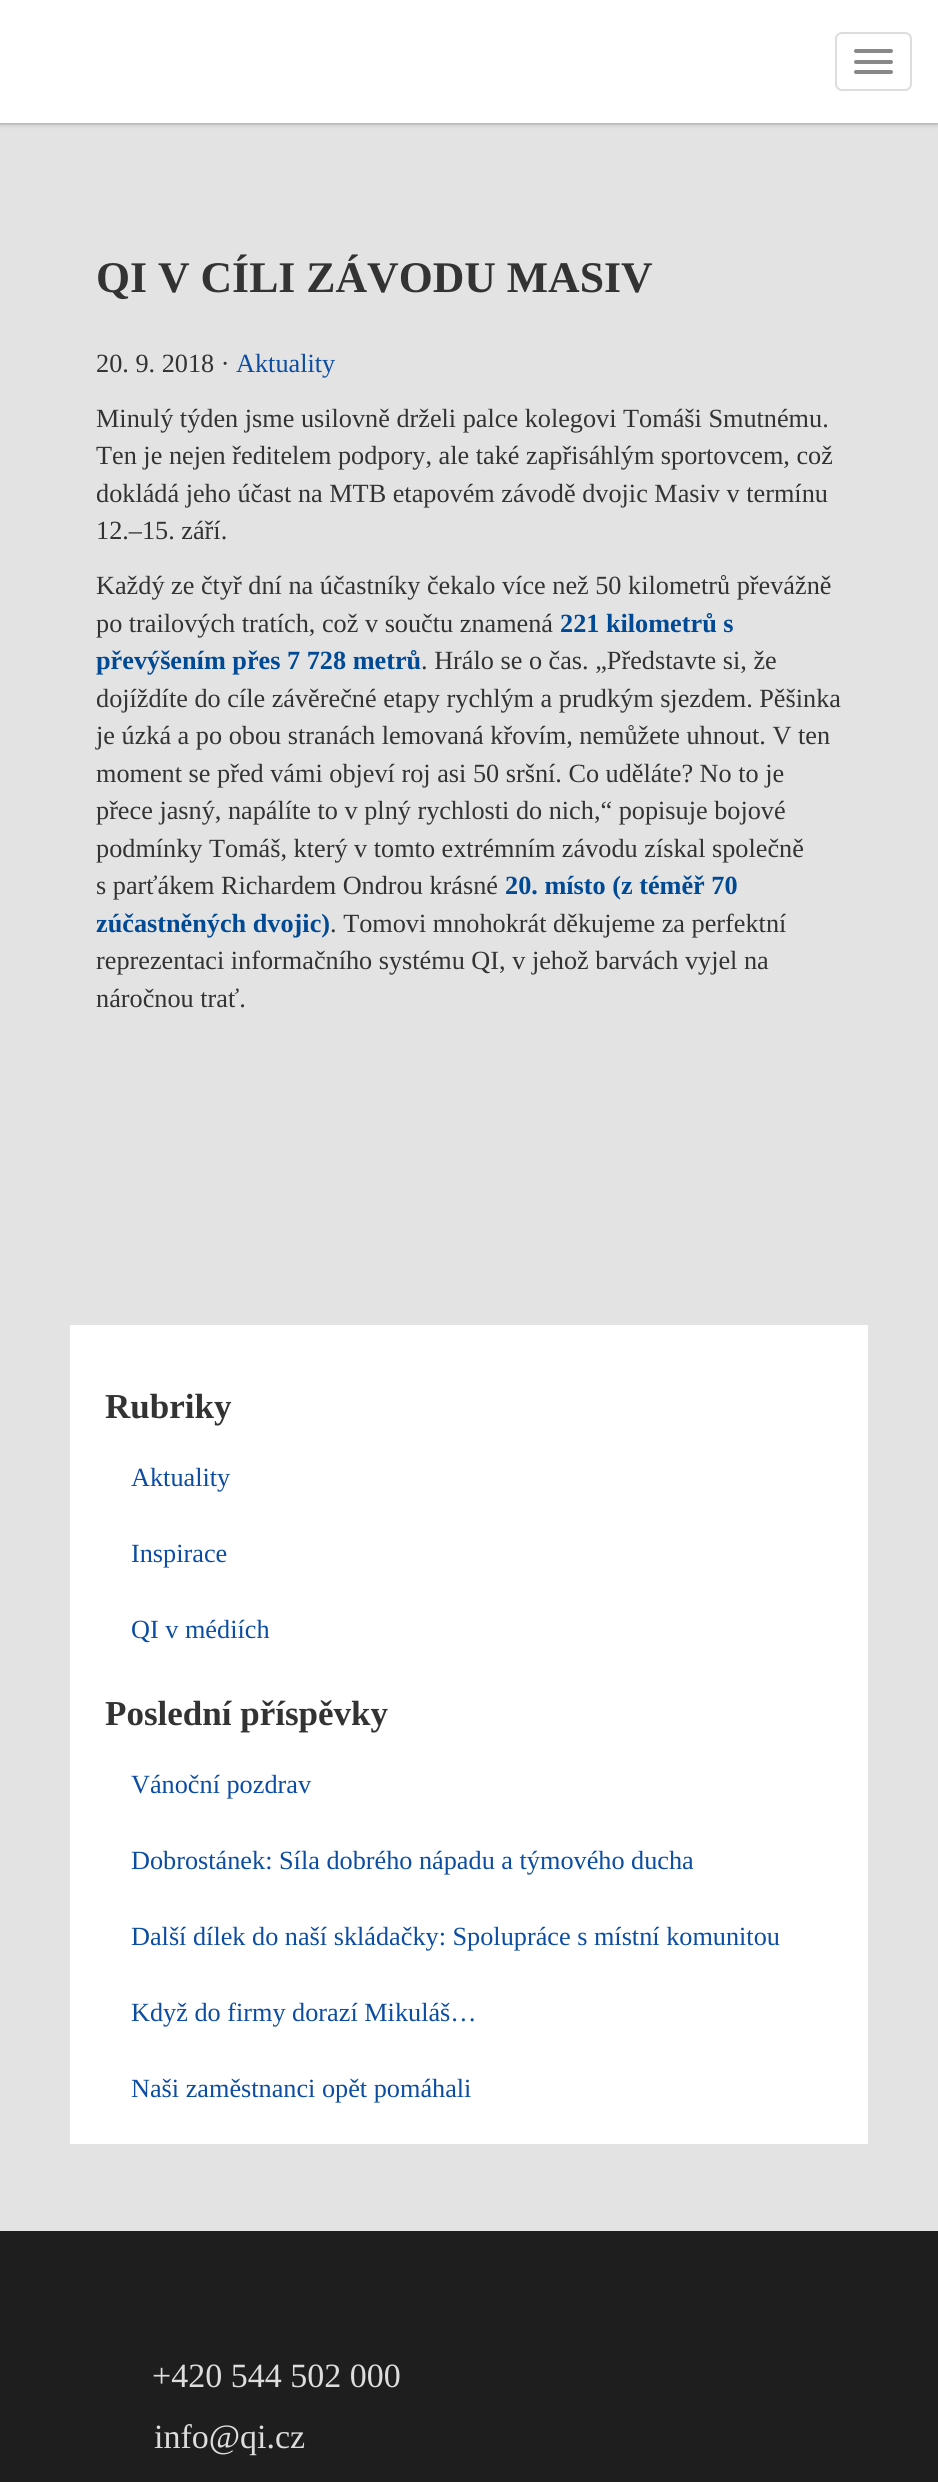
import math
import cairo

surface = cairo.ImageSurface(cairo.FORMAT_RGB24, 938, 2482)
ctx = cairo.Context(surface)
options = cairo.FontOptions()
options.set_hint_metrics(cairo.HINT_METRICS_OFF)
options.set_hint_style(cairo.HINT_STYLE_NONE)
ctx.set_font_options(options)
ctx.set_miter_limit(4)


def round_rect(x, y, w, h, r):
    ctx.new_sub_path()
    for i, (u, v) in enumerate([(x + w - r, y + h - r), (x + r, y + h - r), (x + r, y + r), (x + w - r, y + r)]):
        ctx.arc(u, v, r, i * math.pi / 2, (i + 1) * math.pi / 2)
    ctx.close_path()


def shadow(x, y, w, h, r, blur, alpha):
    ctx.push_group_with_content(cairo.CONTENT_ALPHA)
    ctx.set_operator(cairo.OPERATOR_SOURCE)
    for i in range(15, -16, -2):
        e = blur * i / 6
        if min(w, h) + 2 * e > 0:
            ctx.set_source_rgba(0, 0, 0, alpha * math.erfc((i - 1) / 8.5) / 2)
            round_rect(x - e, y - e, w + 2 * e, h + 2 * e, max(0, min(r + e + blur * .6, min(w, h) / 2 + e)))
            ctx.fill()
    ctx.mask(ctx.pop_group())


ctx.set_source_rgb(0.89, 0.89, 0.89)
ctx.paint()
ctx.set_source_rgb(0.498, 0.498, 0.498)
shadow(0, 0, 938, 123, 0, 2.5, 1)
ctx.set_source_rgb(1, 1, 1)
ctx.rectangle(0, 0, 938, 123)
ctx.fill()
round_rect(836, 33, 75, 57, 6)
ctx.set_source_rgb(0.867, 0.867, 0.867)
ctx.stroke()
ctx.set_source_rgb(0.533, 0.533, 0.533)
round_rect(854, 49, 39, 4, 2)
ctx.fill()
round_rect(854, 60, 39, 4, 2)
ctx.fill()
round_rect(854, 70, 39, 4, 2)
ctx.fill()
ctx.select_font_face("Liberation Serif", cairo.FONT_SLANT_NORMAL, cairo.FONT_WEIGHT_BOLD)
ctx.set_font_size(43.75)
ctx.set_source_rgb(0.2, 0.2, 0.2)
ctx.move_to(96, 292)
ctx.show_text("QI V CÍLI ZÁVODU MASIV")
ctx.select_font_face("Liberation Serif")
ctx.set_font_size(26.25)
ctx.move_to(96, 372)
ctx.show_text("20. 9. 2018 ·")
ctx.set_source_rgb(0.047, 0.302, 0.635)
ctx.move_to(236, 372)
ctx.show_text("Aktuality")
ctx.set_source_rgb(0.2, 0.2, 0.2)
ctx.move_to(96, 427)
ctx.show_text("Minulý týden jsme usilovně drželi palce kolegovi Tomáši Smutnému.")
ctx.move_to(96, 464)
ctx.show_text("Ten je nejen ředitelem podpory, ale také zapřisáhlým sportovcem, což")
ctx.move_to(96, 502)
ctx.show_text("dokládá jeho účast na MTB etapovém závodě dvojic Masiv v termínu")
ctx.move_to(96, 539)
ctx.show_text("12.–15. září.")
ctx.move_to(96, 594)
ctx.show_text("Každý ze čtyř dní na účastníky čekalo více než 50 kilometrů převážně")
ctx.move_to(96, 632)
ctx.show_text("po trailových tratích, což v součtu znamená")
ctx.select_font_face("Liberation Serif", cairo.FONT_SLANT_NORMAL, cairo.FONT_WEIGHT_BOLD)
ctx.set_source_rgb(0, 0.286, 0.58)
ctx.move_to(560, 632)
ctx.show_text("221 kilometrů s")
ctx.move_to(96, 669)
ctx.show_text("převýšením přes 7 728 metrů")
ctx.select_font_face("Liberation Serif")
ctx.set_source_rgb(0.2, 0.2, 0.2)
ctx.move_to(421, 669)
ctx.show_text(". Hrálo se o čas. „Představte si, že")
ctx.move_to(96, 707)
ctx.show_text("dojíždíte do cíle závěrečné etapy rychlým a prudkým sjezdem. Pěšinka")
ctx.move_to(96, 744)
ctx.show_text("je úzká a po obou stranách lemovaná křovím, nemůžete uhnout. V ten")
ctx.move_to(96, 782)
ctx.show_text("moment se před vámi objeví roj asi 50 sršní. Co uděláte? No to je")
ctx.move_to(96, 819)
ctx.show_text("přece jasný, napálíte to v plný rychlosti do nich,“ popisuje bojové")
ctx.move_to(96, 857)
ctx.show_text("podmínky Tomáš, který v tomto extrémním závodu získal společně")
ctx.move_to(96, 894)
ctx.show_text("s parťákem Richardem Ondrou krásné")
ctx.select_font_face("Liberation Serif", cairo.FONT_SLANT_NORMAL, cairo.FONT_WEIGHT_BOLD)
ctx.set_source_rgb(0, 0.286, 0.58)
ctx.move_to(505, 894)
ctx.show_text("20. místo (z téměř 70")
ctx.move_to(96, 932)
ctx.show_text("zúčastněných dvojic)")
ctx.select_font_face("Liberation Serif")
ctx.set_source_rgb(0.2, 0.2, 0.2)
ctx.move_to(330, 932)
ctx.show_text(". Tomovi mnohokrát děkujeme za perfektní")
ctx.move_to(96, 969)
ctx.show_text("reprezentaci informačního systému QI, v jehož barvách vyjel na")
ctx.move_to(96, 1007)
ctx.show_text("náročnou trať.")
ctx.set_source_rgb(1, 1, 1)
ctx.rectangle(70, 1325, 798, 819)
ctx.fill()
ctx.select_font_face("Liberation Serif", cairo.FONT_SLANT_NORMAL, cairo.FONT_WEIGHT_BOLD)
ctx.set_font_size(35)
ctx.set_source_rgb(0.2, 0.2, 0.2)
ctx.move_to(105, 1418)
ctx.show_text("Rubriky")
ctx.select_font_face("Liberation Serif")
ctx.set_font_size(26.25)
ctx.set_source_rgb(0.047, 0.302, 0.635)
ctx.move_to(131, 1486)
ctx.show_text("Aktuality")
ctx.move_to(131, 1562)
ctx.show_text("Inspirace")
ctx.move_to(131, 1638)
ctx.show_text("QI v médiích")
ctx.select_font_face("Liberation Serif", cairo.FONT_SLANT_NORMAL, cairo.FONT_WEIGHT_BOLD)
ctx.set_font_size(35)
ctx.set_source_rgb(0.2, 0.2, 0.2)
ctx.move_to(105, 1725)
ctx.show_text("Poslední příspěvky")
ctx.select_font_face("Liberation Serif")
ctx.set_font_size(26.25)
ctx.set_source_rgb(0.047, 0.302, 0.635)
ctx.move_to(131, 1793)
ctx.show_text("Vánoční pozdrav")
ctx.move_to(131, 1869)
ctx.show_text("Dobrostánek: Síla dobrého nápadu a týmového ducha")
ctx.move_to(131, 1945)
ctx.show_text("Další dílek do naší skládačky: Spolupráce s místní komunitou")
ctx.move_to(131, 2021)
ctx.show_text("Když do firmy dorazí Mikuláš…")
ctx.move_to(131, 2097)
ctx.show_text("Naši zaměstnanci opět pomáhali")
ctx.set_source_rgb(0.118, 0.118, 0.118)
ctx.rectangle(0, 2231, 938, 251)
ctx.fill()
ctx.set_font_size(34)
ctx.set_source_rgb(0.867, 0.867, 0.867)
ctx.move_to(152, 2387)
ctx.show_text("+420 544 502 000")
ctx.move_to(154, 2448)
ctx.show_text("info@qi.cz")
surface.write_to_png("page.png")
